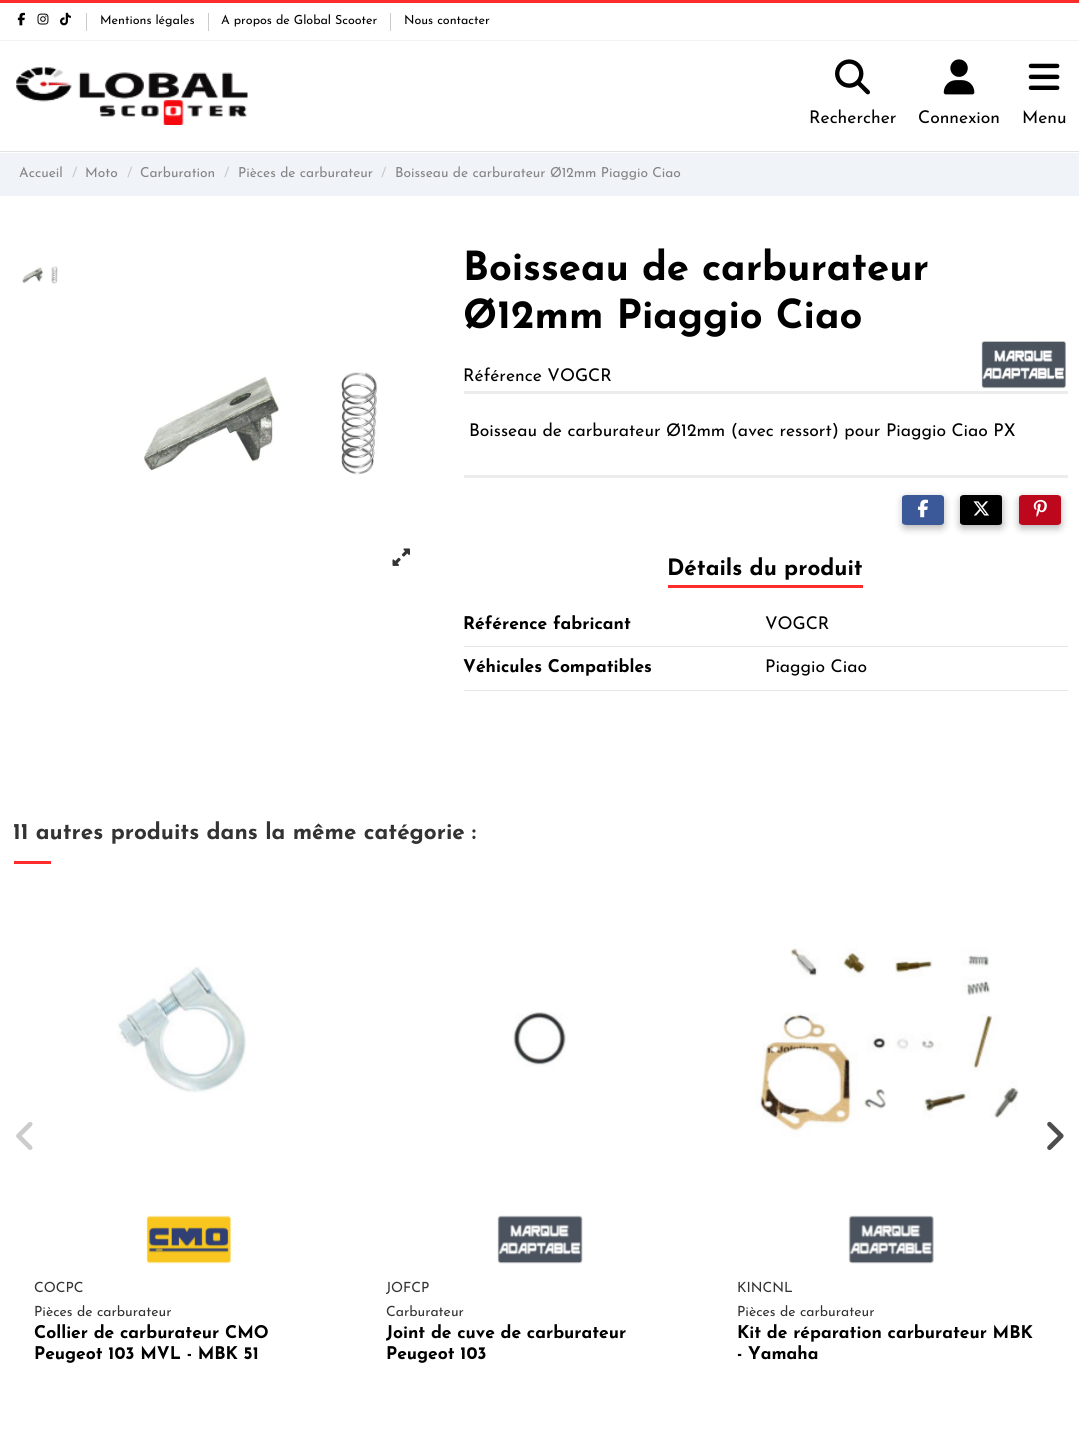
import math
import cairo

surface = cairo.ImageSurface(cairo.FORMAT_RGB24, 1079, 1441)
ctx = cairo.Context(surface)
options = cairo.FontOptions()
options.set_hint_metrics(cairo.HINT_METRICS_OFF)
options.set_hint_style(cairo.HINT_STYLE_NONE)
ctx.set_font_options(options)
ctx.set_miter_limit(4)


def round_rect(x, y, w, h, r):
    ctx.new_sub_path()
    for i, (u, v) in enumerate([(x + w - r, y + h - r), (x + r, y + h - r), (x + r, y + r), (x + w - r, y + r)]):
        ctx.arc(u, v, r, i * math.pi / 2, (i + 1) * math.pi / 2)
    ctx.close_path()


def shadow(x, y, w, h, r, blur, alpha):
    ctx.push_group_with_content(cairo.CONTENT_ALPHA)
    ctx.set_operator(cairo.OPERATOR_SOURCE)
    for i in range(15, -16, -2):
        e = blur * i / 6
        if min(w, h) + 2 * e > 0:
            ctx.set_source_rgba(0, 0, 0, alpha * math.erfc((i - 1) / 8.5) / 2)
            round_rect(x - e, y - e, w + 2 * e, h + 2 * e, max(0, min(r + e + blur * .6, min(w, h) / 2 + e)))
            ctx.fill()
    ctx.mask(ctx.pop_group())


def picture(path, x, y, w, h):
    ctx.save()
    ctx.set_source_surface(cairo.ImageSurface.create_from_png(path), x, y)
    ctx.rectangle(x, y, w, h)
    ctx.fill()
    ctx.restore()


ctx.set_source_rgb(1, 1, 1)
ctx.paint()
ctx.set_source_rgb(1, 0.173, 0.173)
ctx.rectangle(0, 0, 1079, 3)
ctx.fill()
ctx.set_source_rgb(0.953, 0.953, 0.953)
ctx.rectangle(0, 40, 1079, 1)
ctx.fill()
picture("img1.png", 17, 12, 8, 14)
picture("img2.png", 37, 13, 12, 12)
picture("img3.png", 60, 12, 11, 14)
ctx.set_source_rgb(0.8, 0.8, 0.8)
ctx.rectangle(86, 13, 1, 18)
ctx.fill()
ctx.select_font_face("Josefin Sans")
ctx.set_font_size(12.5)
ctx.set_source_rgb(0, 0, 0)
ctx.move_to(100, 24)
ctx.show_text("Mentions légales")
ctx.set_source_rgb(0.8, 0.8, 0.8)
ctx.rectangle(208, 13, 1, 18)
ctx.fill()
ctx.set_source_rgb(0, 0, 0)
ctx.move_to(221, 24)
ctx.show_text("A propos de Global Scooter")
ctx.set_source_rgb(0.8, 0.8, 0.8)
ctx.rectangle(390, 13, 1, 18)
ctx.fill()
ctx.set_source_rgb(0, 0, 0)
ctx.move_to(404, 24)
ctx.show_text("Nous contacter")
ctx.set_source_rgb(0.89, 0.89, 0.89)
ctx.rectangle(0, 151, 1079, 1)
ctx.fill()
picture("img4.png", 16, 67, 232, 58)
picture("img5.png", 835, 59, 35, 36)
ctx.set_font_size(17.5)
ctx.set_source_rgb(0, 0, 0)
ctx.move_to(809, 123)
ctx.show_text("Rechercher")
picture("img6.png", 943, 59, 32, 36)
ctx.move_to(918, 123)
ctx.show_text("Connexion")
picture("img7.png", 1028, 63, 32, 27)
ctx.move_to(1022, 123)
ctx.show_text("Menu")
ctx.set_source_rgb(0.941, 0.953, 0.969)
ctx.rectangle(0, 153, 1079, 43)
ctx.fill()
ctx.set_font_size(13.75)
ctx.set_source_rgb(0.522, 0.522, 0.522)
ctx.move_to(19, 177)
ctx.show_text("Accueil")
ctx.set_source_rgb(0.773, 0.78, 0.788)
ctx.move_to(72, 177)
ctx.show_text("/")
ctx.set_source_rgb(0.522, 0.522, 0.522)
ctx.move_to(85, 177)
ctx.show_text("Moto")
ctx.set_source_rgb(0.773, 0.78, 0.788)
ctx.move_to(127, 177)
ctx.show_text("/")
ctx.set_source_rgb(0.522, 0.522, 0.522)
ctx.move_to(140, 177)
ctx.show_text("Carburation")
ctx.set_source_rgb(0.773, 0.78, 0.788)
ctx.move_to(224, 177)
ctx.show_text("/")
ctx.set_source_rgb(0.522, 0.522, 0.522)
ctx.move_to(238, 177)
ctx.show_text("Pièces de carburateur")
ctx.set_source_rgb(0.773, 0.78, 0.788)
ctx.move_to(381, 177)
ctx.show_text("/")
ctx.set_source_rgb(0.522, 0.522, 0.522)
ctx.move_to(395, 177)
ctx.show_text("Boisseau de carburateur Ø12mm Piaggio Ciao")
picture("img8.png", 22, 266, 36, 18)
picture("img9.png", 144, 372, 234, 103)
picture("img10.png", 392, 548, 18, 18)
ctx.set_source_rgb(0.922, 0.922, 0.925)
ctx.rectangle(464, 391, 604, 3)
ctx.fill()
ctx.select_font_face("Josefin Sans", cairo.FONT_SLANT_NORMAL, cairo.FONT_WEIGHT_BOLD)
ctx.set_font_size(40)
ctx.set_source_rgb(0, 0, 0)
ctx.move_to(463, 280)
ctx.show_text("Boisseau de carburateur")
ctx.move_to(463, 328)
ctx.show_text("Ø12mm Piaggio Ciao")
ctx.select_font_face("Josefin Sans")
ctx.set_font_size(17.5)
ctx.move_to(463, 381)
ctx.show_text("Référence VOGCR")
picture("img11.png", 981, 341, 85, 48)
ctx.move_to(469, 436)
ctx.show_text("Boisseau de carburateur Ø12mm (avec ressort) pour Piaggio Ciao PX")
ctx.set_source_rgb(0.922, 0.922, 0.925)
ctx.rectangle(464, 475, 604, 3)
ctx.fill()
ctx.set_source_rgb(0, 0, 0)
shadow(903, 498, 41, 30, 3, 4, 0.3)
ctx.set_source_rgb(0.231, 0.349, 0.596)
ctx.new_path()
ctx.move_to(907, 495)
ctx.line_to(940, 495)
ctx.curve_to(942, 495, 944, 496, 944, 498)
ctx.line_to(944, 522)
ctx.curve_to(944, 524, 942, 525, 940, 525)
ctx.line_to(907, 525)
ctx.curve_to(904, 525, 902, 524, 902, 522)
ctx.line_to(902, 498)
ctx.curve_to(902, 496, 904, 495, 907, 495)
ctx.close_path()
ctx.fill()
picture("img12.png", 917, 499, 11, 19)
ctx.set_source_rgb(0, 0, 0)
shadow(960, 498, 43, 30, 3, 4, 0.3)
ctx.set_source_rgb(0, 0, 0)
ctx.new_path()
ctx.move_to(964, 495)
ctx.line_to(998, 495)
ctx.curve_to(1001, 495, 1002, 496, 1002, 498)
ctx.line_to(1002, 522)
ctx.curve_to(1002, 524, 1001, 525, 998, 525)
ctx.line_to(964, 525)
ctx.curve_to(962, 525, 960, 524, 960, 522)
ctx.line_to(960, 498)
ctx.curve_to(960, 496, 962, 495, 964, 495)
ctx.close_path()
ctx.fill()
picture("img13.png", 973, 501, 16, 15)
ctx.set_source_rgb(0, 0, 0)
shadow(1019, 498, 42, 30, 3, 4, 0.3)
ctx.set_source_rgb(0.741, 0.031, 0.11)
ctx.new_path()
ctx.move_to(1023, 495)
ctx.line_to(1057, 495)
ctx.curve_to(1059, 495, 1061, 496, 1061, 498)
ctx.line_to(1061, 522)
ctx.curve_to(1061, 524, 1059, 525, 1057, 525)
ctx.line_to(1023, 525)
ctx.curve_to(1021, 525, 1019, 524, 1019, 522)
ctx.line_to(1019, 498)
ctx.curve_to(1019, 496, 1021, 495, 1023, 495)
ctx.close_path()
ctx.fill()
picture("img14.png", 1033, 499, 14, 18)
ctx.set_source_rgb(1, 0.173, 0.173)
ctx.rectangle(668, 585, 195, 3)
ctx.fill()
ctx.select_font_face("Josefin Sans", cairo.FONT_SLANT_NORMAL, cairo.FONT_WEIGHT_BOLD)
ctx.set_font_size(22.5)
ctx.set_source_rgb(0, 0, 0)
ctx.move_to(667, 575)
ctx.show_text("Détails du produit")
ctx.set_source_rgb(0.906, 0.906, 0.906)
ctx.rectangle(464, 646, 604, 1)
ctx.fill()
ctx.set_font_size(17.5)
ctx.set_source_rgb(0, 0, 0)
ctx.move_to(463, 629)
ctx.show_text("Référence fabricant")
ctx.select_font_face("Josefin Sans")
ctx.move_to(765, 629)
ctx.show_text("VOGCR")
ctx.set_source_rgb(0.906, 0.906, 0.906)
ctx.rectangle(464, 690, 604, 1)
ctx.fill()
ctx.select_font_face("Josefin Sans", cairo.FONT_SLANT_NORMAL, cairo.FONT_WEIGHT_BOLD)
ctx.set_source_rgb(0, 0, 0)
ctx.move_to(463, 672)
ctx.show_text("Véhicules Compatibles")
ctx.select_font_face("Josefin Sans")
ctx.move_to(765, 672)
ctx.show_text("Piaggio Ciao")
ctx.select_font_face("Josefin Sans", cairo.FONT_SLANT_NORMAL, cairo.FONT_WEIGHT_BOLD)
ctx.set_font_size(22.5)
ctx.set_source_rgb(0.2, 0.2, 0.2)
ctx.move_to(13, 839)
ctx.show_text("11 autres produits dans la même catégorie :")
ctx.set_source_rgb(1, 0.173, 0.173)
ctx.rectangle(14, 861, 37, 3)
ctx.fill()
picture("img15.png", 16, 1122, 17, 28)
picture("img16.png", 1047, 1121, 17, 29)
picture("img17.png", 117, 966, 129, 127)
picture("img18.png", 146, 1215, 85, 49)
ctx.select_font_face("Josefin Sans")
ctx.set_font_size(14)
ctx.set_source_rgb(0.2, 0.2, 0.2)
ctx.move_to(34, 1292)
ctx.show_text("COCPC")
ctx.move_to(34, 1316)
ctx.show_text("Pièces de carburateur")
ctx.select_font_face("Josefin Sans", cairo.FONT_SLANT_NORMAL, cairo.FONT_WEIGHT_BOLD)
ctx.set_font_size(17.5)
ctx.set_source_rgb(0, 0, 0)
ctx.move_to(34, 1338)
ctx.show_text("Collier de carburateur CMO")
ctx.move_to(34, 1359)
ctx.show_text("Peugeot 103 MVL - MBK 51")
picture("img19.png", 513, 1012, 53, 55)
picture("img20.png", 497, 1215, 86, 49)
ctx.select_font_face("Josefin Sans")
ctx.set_font_size(14)
ctx.set_source_rgb(0.2, 0.2, 0.2)
ctx.move_to(386, 1292)
ctx.show_text("JOFCP")
ctx.move_to(386, 1316)
ctx.show_text("Carburateur")
ctx.select_font_face("Josefin Sans", cairo.FONT_SLANT_NORMAL, cairo.FONT_WEIGHT_BOLD)
ctx.set_font_size(17.5)
ctx.set_source_rgb(0, 0, 0)
ctx.move_to(386, 1338)
ctx.show_text("Joint de cuve de carburateur")
ctx.move_to(386, 1359)
ctx.show_text("Peugeot 103")
picture("img21.png", 755, 948, 264, 189)
picture("img22.png", 848, 1215, 86, 49)
ctx.select_font_face("Josefin Sans")
ctx.set_font_size(14)
ctx.set_source_rgb(0.2, 0.2, 0.2)
ctx.move_to(737, 1292)
ctx.show_text("KINCNL")
ctx.move_to(737, 1316)
ctx.show_text("Pièces de carburateur")
ctx.select_font_face("Josefin Sans", cairo.FONT_SLANT_NORMAL, cairo.FONT_WEIGHT_BOLD)
ctx.set_font_size(17.5)
ctx.set_source_rgb(0, 0, 0)
ctx.move_to(737, 1338)
ctx.show_text("Kit de réparation carburateur MBK")
ctx.move_to(737, 1359)
ctx.show_text("- Yamaha")
surface.write_to_png("page.png")
